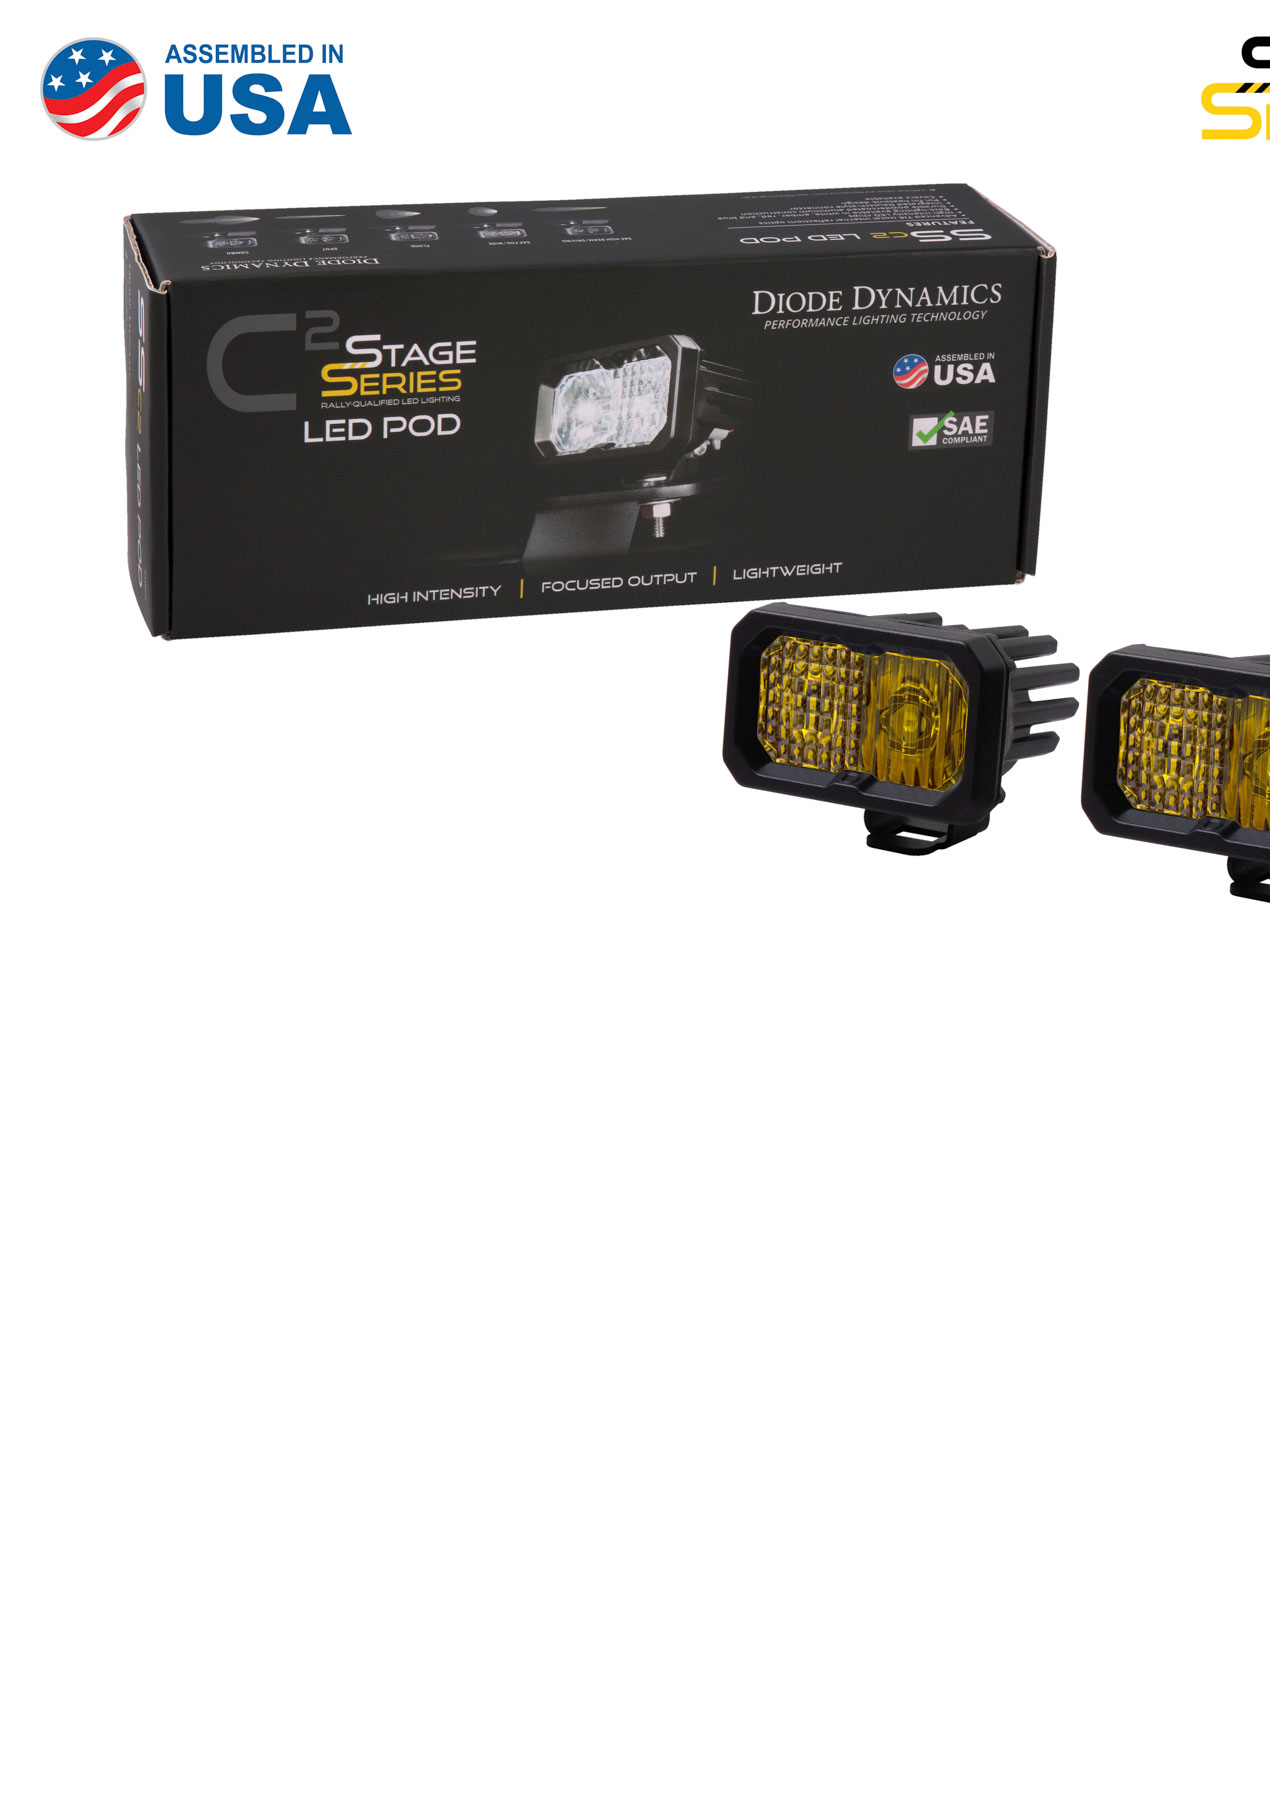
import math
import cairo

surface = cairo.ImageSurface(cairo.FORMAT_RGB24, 1270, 1802)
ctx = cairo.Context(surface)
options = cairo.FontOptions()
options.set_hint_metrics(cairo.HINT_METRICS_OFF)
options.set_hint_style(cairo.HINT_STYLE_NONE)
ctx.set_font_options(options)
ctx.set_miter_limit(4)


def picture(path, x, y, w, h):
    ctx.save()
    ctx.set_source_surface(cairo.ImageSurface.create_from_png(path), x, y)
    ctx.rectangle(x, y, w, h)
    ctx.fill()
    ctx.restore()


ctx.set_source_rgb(1, 1, 1)
ctx.paint()
picture("img1.png", 40, 33, 1230, 871)
surface.write_to_png("page.png")
